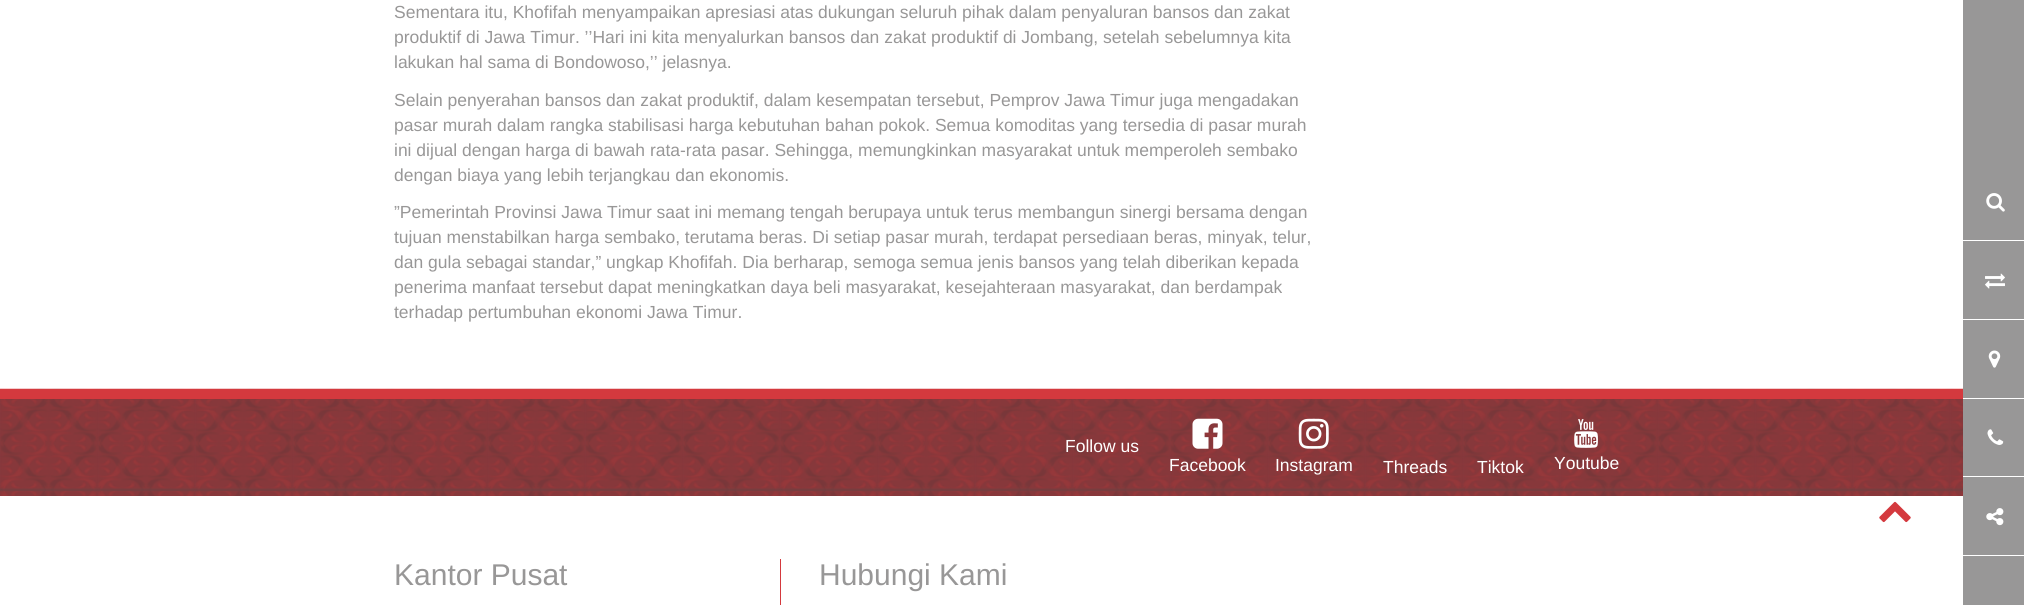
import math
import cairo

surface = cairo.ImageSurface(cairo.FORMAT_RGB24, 2024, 605)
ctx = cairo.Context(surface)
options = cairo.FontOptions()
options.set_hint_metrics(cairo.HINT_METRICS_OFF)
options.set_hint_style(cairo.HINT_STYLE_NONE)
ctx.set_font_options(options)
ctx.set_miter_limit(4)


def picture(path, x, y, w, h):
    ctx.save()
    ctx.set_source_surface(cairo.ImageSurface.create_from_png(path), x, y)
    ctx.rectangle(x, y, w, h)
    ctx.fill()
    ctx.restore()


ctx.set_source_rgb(1, 1, 1)
ctx.paint()
ctx.select_font_face("Liberation Sans")
ctx.set_font_size(17.5)
ctx.set_source_rgb(0.596, 0.592, 0.592)
ctx.move_to(394, 18)
ctx.show_text("Sementara itu, Khofifah menyampaikan apresiasi atas dukungan seluruh pihak dalam penyaluran bansos dan zakat")
ctx.move_to(394, 43)
ctx.show_text("produktif di Jawa Timur. ’’Hari ini kita menyalurkan bansos dan zakat produktif di Jombang, setelah sebelumnya kita")
ctx.move_to(394, 68)
ctx.show_text("lakukan hal sama di Bondowoso,’’ jelasnya.")
ctx.move_to(394, 106)
ctx.show_text("Selain penyerahan bansos dan zakat produktif, dalam kesempatan tersebut, Pemprov Jawa Timur juga mengadakan")
ctx.move_to(394, 131)
ctx.show_text("pasar murah dalam rangka stabilisasi harga kebutuhan bahan pokok. Semua komoditas yang tersedia di pasar murah")
ctx.move_to(394, 156)
ctx.show_text("ini dijual dengan harga di bawah rata-rata pasar. Sehingga, memungkinkan masyarakat untuk memperoleh sembako")
ctx.move_to(394, 181)
ctx.show_text("dengan biaya yang lebih terjangkau dan ekonomis.")
ctx.move_to(394, 218)
ctx.show_text("”Pemerintah Provinsi Jawa Timur saat ini memang tengah berupaya untuk terus membangun sinergi bersama dengan")
ctx.move_to(394, 243)
ctx.show_text("tujuan menstabilkan harga sembako, terutama beras. Di setiap pasar murah, terdapat persediaan beras, minyak, telur,")
ctx.move_to(394, 268)
ctx.show_text("dan gula sebagai standar,” ungkap Khofifah. Dia berharap, semoga semua jenis bansos yang telah diberikan kepada")
ctx.move_to(394, 293)
ctx.show_text("penerima manfaat tersebut dapat meningkatkan daya beli masyarakat, kesejahteraan masyarakat, dan berdampak")
ctx.move_to(394, 318)
ctx.show_text("terhadap pertumbuhan ekonomi Jawa Timur.")
ctx.rectangle(1963, 0, 61, 605)
ctx.fill()
ctx.set_source_rgb(1, 1, 1)
ctx.rectangle(1963, 240, 61, 1)
ctx.fill()
picture("img1.png", 1986, 193, 19, 19)
ctx.rectangle(1963, 319, 61, 1)
ctx.fill()
picture("img2.png", 1985, 273, 20, 16)
ctx.rectangle(1963, 398, 61, 1)
ctx.fill()
picture("img3.png", 1988, 350, 13, 18)
ctx.rectangle(1963, 476, 61, 1)
ctx.fill()
picture("img4.png", 1987, 429, 17, 16)
ctx.rectangle(1963, 555, 61, 1)
ctx.fill()
picture("img5.png", 1986, 508, 18, 18)
ctx.set_source_rgb(0.298, 0.298, 0.298)
ctx.rectangle(0, 399, 1963, 97)
ctx.fill()
picture("img6.png", 0, 388, 1963, 108)
ctx.set_source_rgb(0.831, 0.224, 0.243)
ctx.rectangle(0, 389, 1963, 10)
ctx.fill()
ctx.set_source_rgb(1, 1, 1)
ctx.move_to(1065, 452)
ctx.show_text("Follow us")
picture("img7.png", 1192, 418, 31, 31)
ctx.move_to(1169, 471)
ctx.show_text("Facebook")
picture("img8.png", 1298, 418, 31, 31)
ctx.move_to(1275, 471)
ctx.show_text("Instagram")
ctx.move_to(1383, 473)
ctx.show_text("Threads")
ctx.move_to(1477, 473)
ctx.show_text("Tiktok")
picture("img9.png", 1574, 419, 24, 29)
ctx.move_to(1554, 469)
ctx.show_text("Youtube")
ctx.set_source_rgb(0.831, 0.224, 0.243)
ctx.rectangle(780, 559, 1, 46)
ctx.fill()
ctx.set_font_size(30)
ctx.set_source_rgb(0.596, 0.592, 0.592)
ctx.move_to(394, 585)
ctx.show_text("Kantor Pusat")
ctx.move_to(819, 585)
ctx.show_text("Hubungi Kami")
picture("img10.png", 1879, 501, 32, 22)
surface.write_to_png("page.png")
